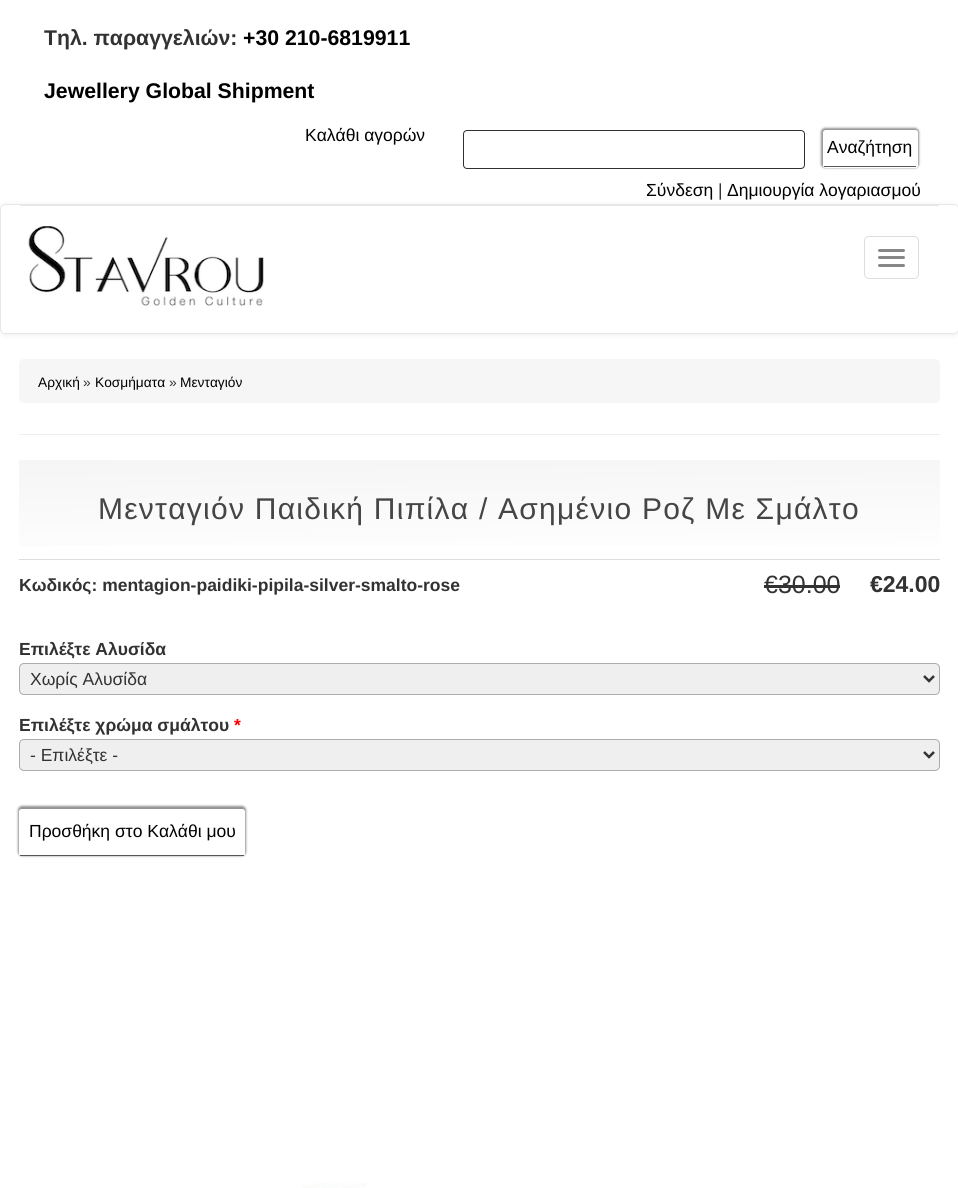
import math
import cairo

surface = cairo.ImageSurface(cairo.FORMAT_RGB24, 958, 1188)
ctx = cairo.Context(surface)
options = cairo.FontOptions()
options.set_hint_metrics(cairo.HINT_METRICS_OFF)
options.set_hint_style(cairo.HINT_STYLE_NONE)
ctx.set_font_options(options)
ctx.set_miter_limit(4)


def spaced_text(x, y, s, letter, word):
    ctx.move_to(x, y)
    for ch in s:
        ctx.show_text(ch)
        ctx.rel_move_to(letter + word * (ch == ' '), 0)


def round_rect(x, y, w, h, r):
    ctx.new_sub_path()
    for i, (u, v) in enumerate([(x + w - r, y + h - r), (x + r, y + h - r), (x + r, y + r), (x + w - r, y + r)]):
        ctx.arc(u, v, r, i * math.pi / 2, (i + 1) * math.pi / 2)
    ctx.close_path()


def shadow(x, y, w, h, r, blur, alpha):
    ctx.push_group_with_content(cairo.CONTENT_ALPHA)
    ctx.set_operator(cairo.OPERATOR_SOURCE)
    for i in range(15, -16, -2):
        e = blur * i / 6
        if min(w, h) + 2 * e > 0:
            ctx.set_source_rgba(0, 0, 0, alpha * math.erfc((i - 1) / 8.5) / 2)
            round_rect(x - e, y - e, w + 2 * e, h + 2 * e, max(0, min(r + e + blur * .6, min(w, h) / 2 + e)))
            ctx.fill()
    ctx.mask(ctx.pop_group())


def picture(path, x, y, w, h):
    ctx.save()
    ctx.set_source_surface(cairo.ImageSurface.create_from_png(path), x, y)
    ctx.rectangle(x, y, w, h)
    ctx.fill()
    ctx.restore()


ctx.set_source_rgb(1, 1, 1)
ctx.paint()
ctx.select_font_face("Liberation Sans", cairo.FONT_SLANT_NORMAL, cairo.FONT_WEIGHT_BOLD)
ctx.set_font_size(21.25)
ctx.set_source_rgb(0.196, 0.196, 0.196)
ctx.move_to(44, 45)
ctx.show_text("Τηλ. παραγγελιών:")
ctx.set_source_rgb(0, 0, 0)
ctx.move_to(243, 45)
ctx.show_text("+30 210-6819911")
ctx.move_to(44, 98)
ctx.show_text("Jewellery Global Shipment")
round_rect(463.5, 130.5, 341, 38, 3.5)
ctx.set_source_rgb(0.188, 0.188, 0.188)
ctx.set_line_width(1)
ctx.stroke()
ctx.set_source_rgb(0.576, 0.576, 0.576)
shadow(821, 128, 98, 40, 4, 1, 1)
ctx.set_source_rgb(1, 1, 1)
round_rect(823, 130, 95, 38, 2.5)
ctx.fill()
ctx.set_source_rgb(0.341, 0.341, 0.341)
ctx.rectangle(824, 166, 92, 1)
ctx.fill()
ctx.select_font_face("Liberation Sans")
ctx.set_font_size(17.5)
ctx.set_source_rgb(0, 0, 0)
ctx.move_to(827, 153)
ctx.show_text("Αναζήτηση")
ctx.move_to(305, 141)
ctx.show_text("Καλάθι αγορών")
ctx.move_to(646, 196)
ctx.show_text("Σύνδεση")
ctx.set_source_rgb(0.196, 0.196, 0.196)
ctx.move_to(718, 196)
ctx.show_text("|")
ctx.set_source_rgb(0, 0, 0)
ctx.move_to(727, 196)
ctx.show_text("Δημιουργία λογαριασμού")
ctx.save()
ctx.set_fill_rule(cairo.FILL_RULE_EVEN_ODD)
ctx.new_path()
ctx.move_to(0, 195)
ctx.line_to(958, 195)
ctx.line_to(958, 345)
ctx.line_to(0, 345)
ctx.close_path()
ctx.move_to(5, 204)
ctx.line_to(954, 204)
ctx.curve_to(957, 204, 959, 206, 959, 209)
ctx.line_to(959, 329)
ctx.curve_to(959, 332, 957, 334, 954, 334)
ctx.line_to(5, 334)
ctx.curve_to(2, 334, 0, 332, 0, 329)
ctx.line_to(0, 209)
ctx.curve_to(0, 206, 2, 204, 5, 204)
ctx.close_path()
ctx.clip()
ctx.set_source_rgb(0, 0, 0)
shadow(0, 205, 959, 130, 5, 3, 0.07)
ctx.restore()
round_rect(0.5, 204.5, 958, 129, 4.5)
ctx.set_source_rgb(0.906, 0.906, 0.906)
ctx.stroke()
ctx.rectangle(20, 205, 919, 1)
ctx.fill()
picture("img1.png", 28, 226, 236, 80)
round_rect(864.5, 236.5, 54, 42, 4.5)
ctx.set_source_rgb(0.867, 0.867, 0.867)
ctx.stroke()
ctx.set_source_rgb(0.533, 0.533, 0.533)
round_rect(878, 249, 27, 3, 1.5)
ctx.fill()
round_rect(878, 256, 27, 3, 1.5)
ctx.fill()
round_rect(878, 264, 27, 3, 1.5)
ctx.fill()
ctx.set_source_rgb(0.933, 0.933, 0.933)
ctx.rectangle(19, 434, 921, 1)
ctx.fill()
ctx.set_source_rgb(0.961, 0.961, 0.961)
round_rect(19, 359, 921, 44, 5)
ctx.fill()
ctx.set_font_size(13.75)
ctx.set_source_rgb(0, 0, 0)
ctx.move_to(38, 387)
ctx.show_text("Αρχική")
ctx.set_source_rgb(0.196, 0.196, 0.196)
ctx.move_to(83, 387)
ctx.show_text("»")
ctx.set_source_rgb(0, 0, 0)
ctx.move_to(95, 387)
ctx.show_text("Κοσμήματα")
ctx.set_source_rgb(0.196, 0.196, 0.196)
ctx.move_to(169, 387)
ctx.show_text("»")
ctx.set_source_rgb(0, 0, 0)
ctx.move_to(180, 387)
ctx.show_text("Μενταγιόν")
gradient = cairo.LinearGradient(478, 452, 480, 567)
gradient.add_color_stop_rgba(0, 0.961, 0.961, 0.961, 1)
gradient.add_color_stop_rgba(1, 1, 1, 1, 1)
ctx.set_source(gradient)
ctx.rectangle(19, 460, 921, 86)
ctx.fill()
ctx.set_source_rgb(0.867, 0.867, 0.867)
ctx.rectangle(19, 559, 921, 1)
ctx.fill()
ctx.set_font_size(30)
ctx.set_source_rgb(0.271, 0.271, 0.271)
spaced_text(98, 519, "Μενταγιόν Παιδική Πιπίλα / Ασημένιο Ροζ Με Σμάλτο", 1.25, 0)
ctx.select_font_face("Liberation Sans", cairo.FONT_SLANT_NORMAL, cairo.FONT_WEIGHT_BOLD)
ctx.set_font_size(17.5)
ctx.set_source_rgb(0.196, 0.196, 0.196)
ctx.move_to(19, 591)
ctx.show_text("Κωδικός: mentagion-paidiki-pipila-silver-smalto-rose")
ctx.select_font_face("Liberation Sans")
ctx.set_font_size(25)
ctx.move_to(764, 593)
ctx.show_text("€30.00")
ctx.rectangle(764, 585, 76, 3)
ctx.fill()
ctx.select_font_face("Liberation Sans", cairo.FONT_SLANT_NORMAL, cairo.FONT_WEIGHT_BOLD)
ctx.set_font_size(23)
ctx.move_to(870, 592)
ctx.show_text("€24.00")
ctx.set_font_size(17.5)
ctx.move_to(19, 655)
ctx.show_text("Επιλέξτε Αλυσίδα")
ctx.set_source_rgb(0.937, 0.937, 0.937)
round_rect(19.5, 663.5, 920, 31, 4.5)
ctx.fill_preserve()
ctx.set_source_rgb(0.675, 0.675, 0.675)
ctx.stroke()
ctx.new_path()
ctx.move_to(924, 676)
ctx.line_to(929, 681)
ctx.line_to(934, 676)
ctx.set_source_rgb(0.196, 0.196, 0.196)
ctx.set_line_width(2.5)
ctx.stroke()
ctx.select_font_face("Liberation Sans")
ctx.move_to(30, 685)
ctx.show_text("Χωρίς Αλυσίδα")
ctx.select_font_face("Liberation Sans", cairo.FONT_SLANT_NORMAL, cairo.FONT_WEIGHT_BOLD)
ctx.move_to(19, 731)
ctx.show_text("Επιλέξτε χρώμα σμάλτου")
ctx.set_source_rgb(1, 0, 0)
ctx.move_to(234, 731)
ctx.show_text("*")
ctx.set_source_rgb(0.937, 0.937, 0.937)
round_rect(19.5, 739.5, 920, 31, 4.5)
ctx.fill_preserve()
ctx.set_source_rgb(0.675, 0.675, 0.675)
ctx.set_line_width(1)
ctx.stroke()
ctx.new_path()
ctx.move_to(924, 752)
ctx.line_to(929, 757)
ctx.line_to(934, 752)
ctx.set_source_rgb(0.196, 0.196, 0.196)
ctx.set_line_width(2.5)
ctx.stroke()
ctx.select_font_face("Liberation Sans")
ctx.move_to(30, 761)
ctx.show_text("- Επιλέξτε -")
ctx.set_source_rgb(0.576, 0.576, 0.576)
shadow(18, 806, 228, 50, 4, 1, 1)
ctx.set_source_rgb(1, 1, 1)
round_rect(19, 809, 226, 47, 2.5)
ctx.fill()
ctx.set_source_rgb(0.341, 0.341, 0.341)
ctx.rectangle(20, 855, 224, 1)
ctx.fill()
ctx.set_source_rgb(0, 0, 0)
ctx.move_to(29, 837)
ctx.show_text("Προσθήκη στο Καλάθι μου")
picture("img2.png", 302, 1183, 64, 5)
surface.write_to_png("page.png")
